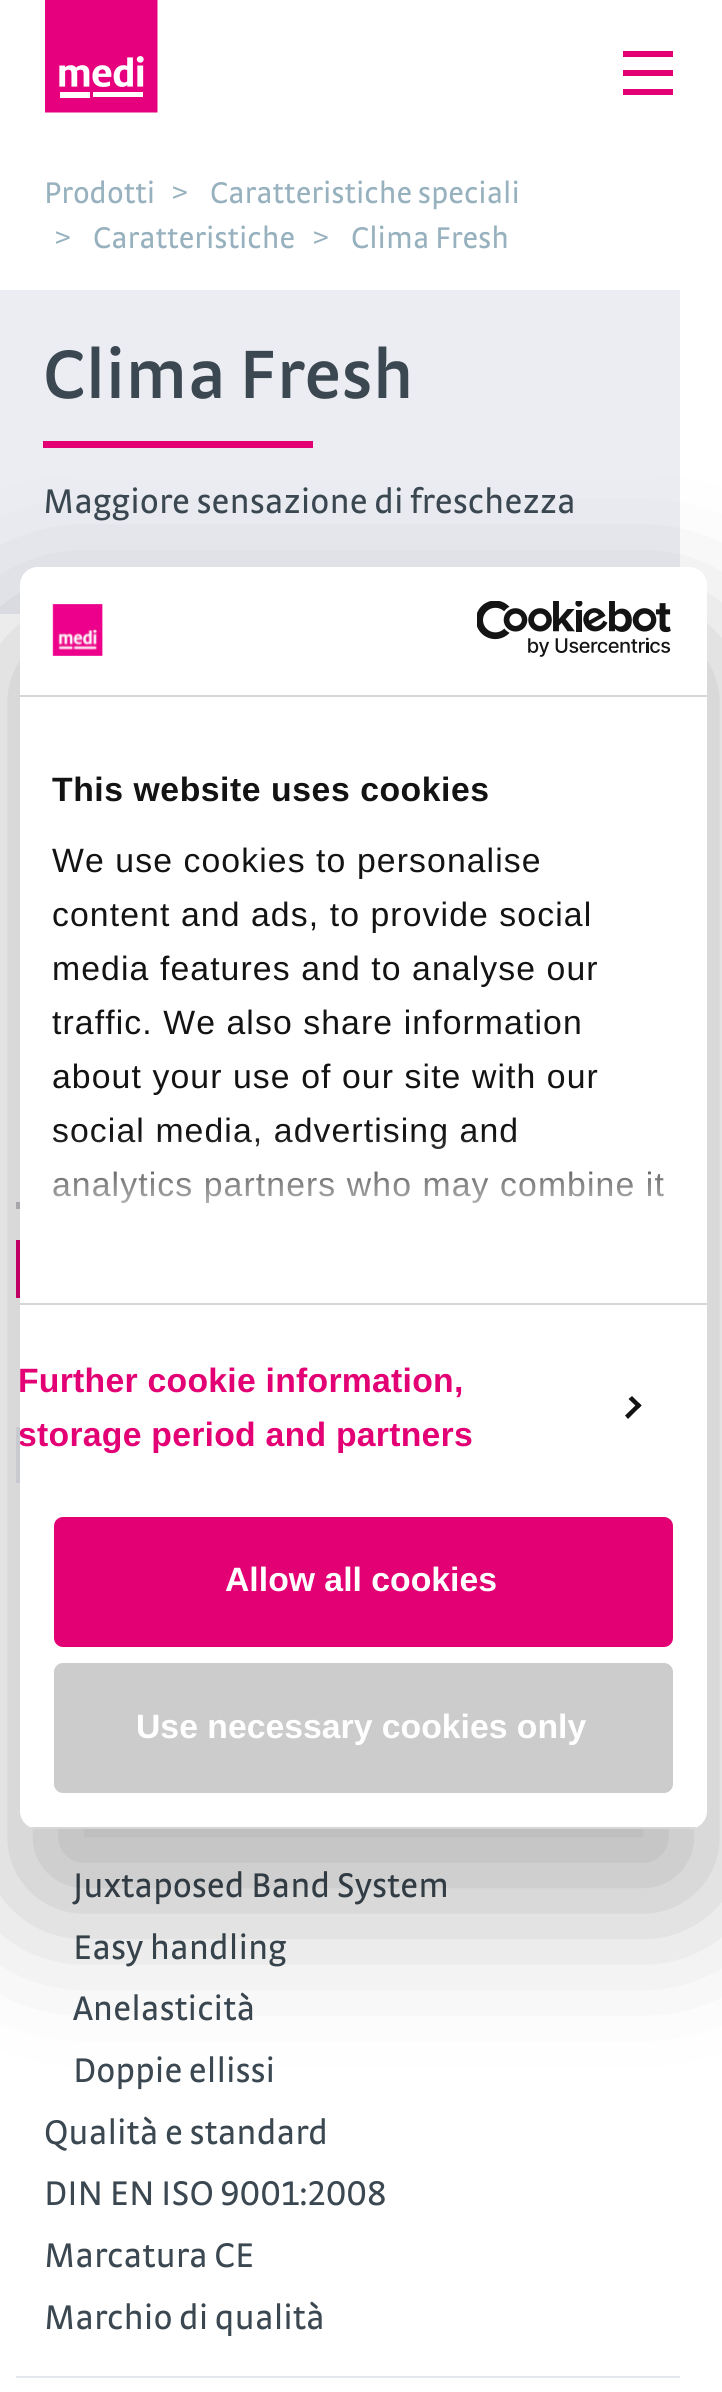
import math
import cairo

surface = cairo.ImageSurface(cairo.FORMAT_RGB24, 722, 2392)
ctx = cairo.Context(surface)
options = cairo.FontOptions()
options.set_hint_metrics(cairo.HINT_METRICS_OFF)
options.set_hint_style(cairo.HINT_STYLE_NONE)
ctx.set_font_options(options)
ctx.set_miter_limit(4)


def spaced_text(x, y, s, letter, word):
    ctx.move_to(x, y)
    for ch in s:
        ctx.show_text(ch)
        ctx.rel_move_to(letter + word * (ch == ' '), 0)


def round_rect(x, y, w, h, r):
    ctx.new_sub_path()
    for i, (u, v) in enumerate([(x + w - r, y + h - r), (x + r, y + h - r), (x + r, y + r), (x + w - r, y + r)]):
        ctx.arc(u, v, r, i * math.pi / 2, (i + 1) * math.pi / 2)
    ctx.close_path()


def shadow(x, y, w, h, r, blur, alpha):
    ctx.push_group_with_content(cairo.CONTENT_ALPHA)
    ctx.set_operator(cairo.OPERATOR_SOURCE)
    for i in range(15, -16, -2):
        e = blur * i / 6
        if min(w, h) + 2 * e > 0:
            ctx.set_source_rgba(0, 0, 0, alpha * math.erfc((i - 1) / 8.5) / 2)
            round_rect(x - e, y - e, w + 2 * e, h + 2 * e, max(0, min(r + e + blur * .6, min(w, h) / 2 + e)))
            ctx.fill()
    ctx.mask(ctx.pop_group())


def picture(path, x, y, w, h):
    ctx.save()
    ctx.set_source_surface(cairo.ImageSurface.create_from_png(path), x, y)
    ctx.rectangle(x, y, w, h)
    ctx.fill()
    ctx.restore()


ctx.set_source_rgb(1, 1, 1)
ctx.paint()
picture("img1.png", 45, 0, 113, 113)
ctx.set_source_rgb(0.886, 0, 0.455)
ctx.new_path()
ctx.move_to(673, 57)
ctx.line_to(623, 57)
ctx.line_to(623, 51)
ctx.line_to(673, 51)
ctx.close_path()
ctx.move_to(673, 70)
ctx.line_to(623, 70)
ctx.line_to(623, 76)
ctx.line_to(673, 76)
ctx.close_path()
ctx.move_to(673, 89)
ctx.line_to(623, 89)
ctx.line_to(623, 95)
ctx.line_to(673, 95)
ctx.close_path()
ctx.fill()
ctx.select_font_face("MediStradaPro")
ctx.set_font_size(31.5)
ctx.set_source_rgb(0.592, 0.694, 0.745)
ctx.move_to(44, 203)
ctx.show_text("Prodotti")
ctx.select_font_face("Source Sans Pro")
ctx.move_to(172, 203)
ctx.show_text(">")
ctx.select_font_face("MediStradaPro")
ctx.move_to(210, 203)
ctx.show_text("Caratteristiche speciali")
ctx.select_font_face("Source Sans Pro")
ctx.move_to(55, 248)
ctx.show_text(">")
ctx.select_font_face("MediStradaPro")
ctx.move_to(93, 248)
ctx.show_text("Caratteristiche")
ctx.select_font_face("Source Sans Pro")
ctx.move_to(313, 248)
ctx.show_text(">")
ctx.select_font_face("MediStradaPro")
ctx.move_to(351, 248)
ctx.show_text("Clima Fresh")
ctx.set_source_rgb(0.918, 0.929, 0.953)
ctx.rectangle(0, 290, 680, 324)
ctx.fill()
ctx.select_font_face("MediStradaPro SemiBold")
ctx.set_font_size(72)
ctx.set_source_rgb(0.231, 0.282, 0.318)
ctx.move_to(43, 398)
ctx.show_text("Clima Fresh")
ctx.set_source_rgb(0.886, 0, 0.455)
ctx.rectangle(43, 441, 270, 7)
ctx.fill()
ctx.select_font_face("MediStradaPro")
ctx.set_font_size(36)
ctx.set_source_rgb(0.231, 0.282, 0.318)
ctx.move_to(43, 513)
ctx.show_text("Maggiore sensazione di freschezza")
ctx.set_source_rgb(0.894, 0.906, 0.929)
ctx.rectangle(16, 2376, 664, 2)
ctx.fill()
ctx.set_source_rgb(0.765, 0.776, 0.796)
ctx.rectangle(16, 1202, 4, 7)
ctx.fill()
ctx.set_source_rgb(0.886, 0, 0.455)
ctx.rectangle(16, 1240, 4, 58)
ctx.fill()
ctx.set_source_rgb(0.918, 0.929, 0.953)
ctx.rectangle(16, 1427, 4, 56)
ctx.fill()
ctx.set_source_rgb(0.231, 0.282, 0.318)
ctx.move_to(73, 1897)
ctx.show_text("Juxtaposed Band System")
ctx.move_to(73, 1959)
ctx.show_text("Easy handling")
ctx.move_to(73, 2020)
ctx.show_text("Anelasticità")
ctx.move_to(73, 2082)
ctx.show_text("Doppie ellissi")
ctx.move_to(44, 2144)
ctx.show_text("Qualità e standard")
ctx.select_font_face("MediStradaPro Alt")
ctx.move_to(44, 2205)
ctx.show_text("DIN EN ISO 9001:2008")
ctx.select_font_face("MediStradaPro")
ctx.move_to(44, 2267)
ctx.show_text("Marcatura CE")
ctx.move_to(44, 2329)
ctx.show_text("Marchio di qualità")
ctx.set_source_rgb(0, 0, 0)
shadow(20, 639, 687, 1262, 18, 76.5, 0.3)
ctx.set_source_rgb(1, 1, 1)
round_rect(20, 567, 687, 1262, 18)
ctx.fill()
ctx.set_source_rgb(0.839, 0.839, 0.839)
ctx.rectangle(20, 695, 687, 2)
ctx.fill()
picture("img2.png", 52, 604, 51, 52)
picture("img3.png", 477, 601, 194, 56)
ctx.rectangle(20, 1303, 687, 2)
ctx.fill()
ctx.select_font_face("Liberation Sans", cairo.FONT_SLANT_NORMAL, cairo.FONT_WEIGHT_BOLD)
ctx.set_font_size(33.75)
ctx.set_source_rgb(0.078, 0.078, 0.078)
spaced_text(52, 801, "This website uses cookies", 0.55, 0)
ctx.select_font_face("Liberation Sans")
spaced_text(52, 872, "We use cookies to personalise", 1.1, 0)
spaced_text(52, 926, "content and ads, to provide social", 1.1, 0)
spaced_text(52, 980, "media features and to analyse our", 1.1, 0)
spaced_text(52, 1034, "traffic. We also share information", 1.1, 0)
spaced_text(52, 1088, "about your use of our site with our", 1.1, 0)
spaced_text(52, 1142, "social media, advertising and", 1.1, 0)
spaced_text(52, 1196, "analytics partners who may combine it", 1.1, 0)
gradient = cairo.LinearGradient(348, 1302, 348, 1133)
gradient.add_color_stop_rgba(0, 1, 1, 1, 1)
gradient.add_color_stop_rgba(0.5, 1, 1, 1, 0.8)
gradient.add_color_stop_rgba(1, 1, 1, 1, 0)
ctx.set_source(gradient)
ctx.rectangle(53, 1135, 612, 68)
ctx.fill()
ctx.select_font_face("Liberation Sans", cairo.FONT_SLANT_NORMAL, cairo.FONT_WEIGHT_BOLD)
ctx.set_source_rgb(0.886, 0, 0.455)
spaced_text(18, 1392, "Further cookie information,", 0.25, 0)
ctx.set_source_rgb(0.078, 0.078, 0.078)
ctx.new_path()
ctx.move_to(632, 1396)
ctx.line_to(641.5, 1405.5)
ctx.line_to(638.5, 1408.5)
ctx.line_to(628.5, 1399)
ctx.close_path()
ctx.fill()
ctx.new_path()
ctx.move_to(638.5, 1402.5)
ctx.line_to(641.5, 1405.5)
ctx.line_to(628, 1419)
ctx.line_to(625, 1415.5)
ctx.close_path()
ctx.fill()
ctx.save()
round_rect(20, 567, 687, 1262, 18)
ctx.clip()
ctx.set_source_rgb(0.886, 0, 0.455)
spaced_text(18, 1446, "storage period and partners", 0.25, 0)
ctx.set_source_rgb(0.839, 0.839, 0.839)
ctx.rectangle(30, 1827, 667, 2)
ctx.fill()
ctx.restore()
ctx.set_source_rgb(0.886, 0, 0.455)
round_rect(56.5, 1519.5, 614, 125, 6.5)
ctx.fill_preserve()
ctx.set_line_width(5)
ctx.stroke()
ctx.set_source_rgb(1, 1, 1)
ctx.move_to(225, 1591)
ctx.show_text("Allow all cookies")
ctx.set_source_rgb(0.8, 0.8, 0.8)
round_rect(56.5, 1665.5, 614, 125, 6.5)
ctx.fill_preserve()
ctx.stroke()
ctx.set_source_rgb(1, 1, 1)
ctx.move_to(136, 1738)
ctx.show_text("Use necessary cookies only")
surface.write_to_png("page.png")
